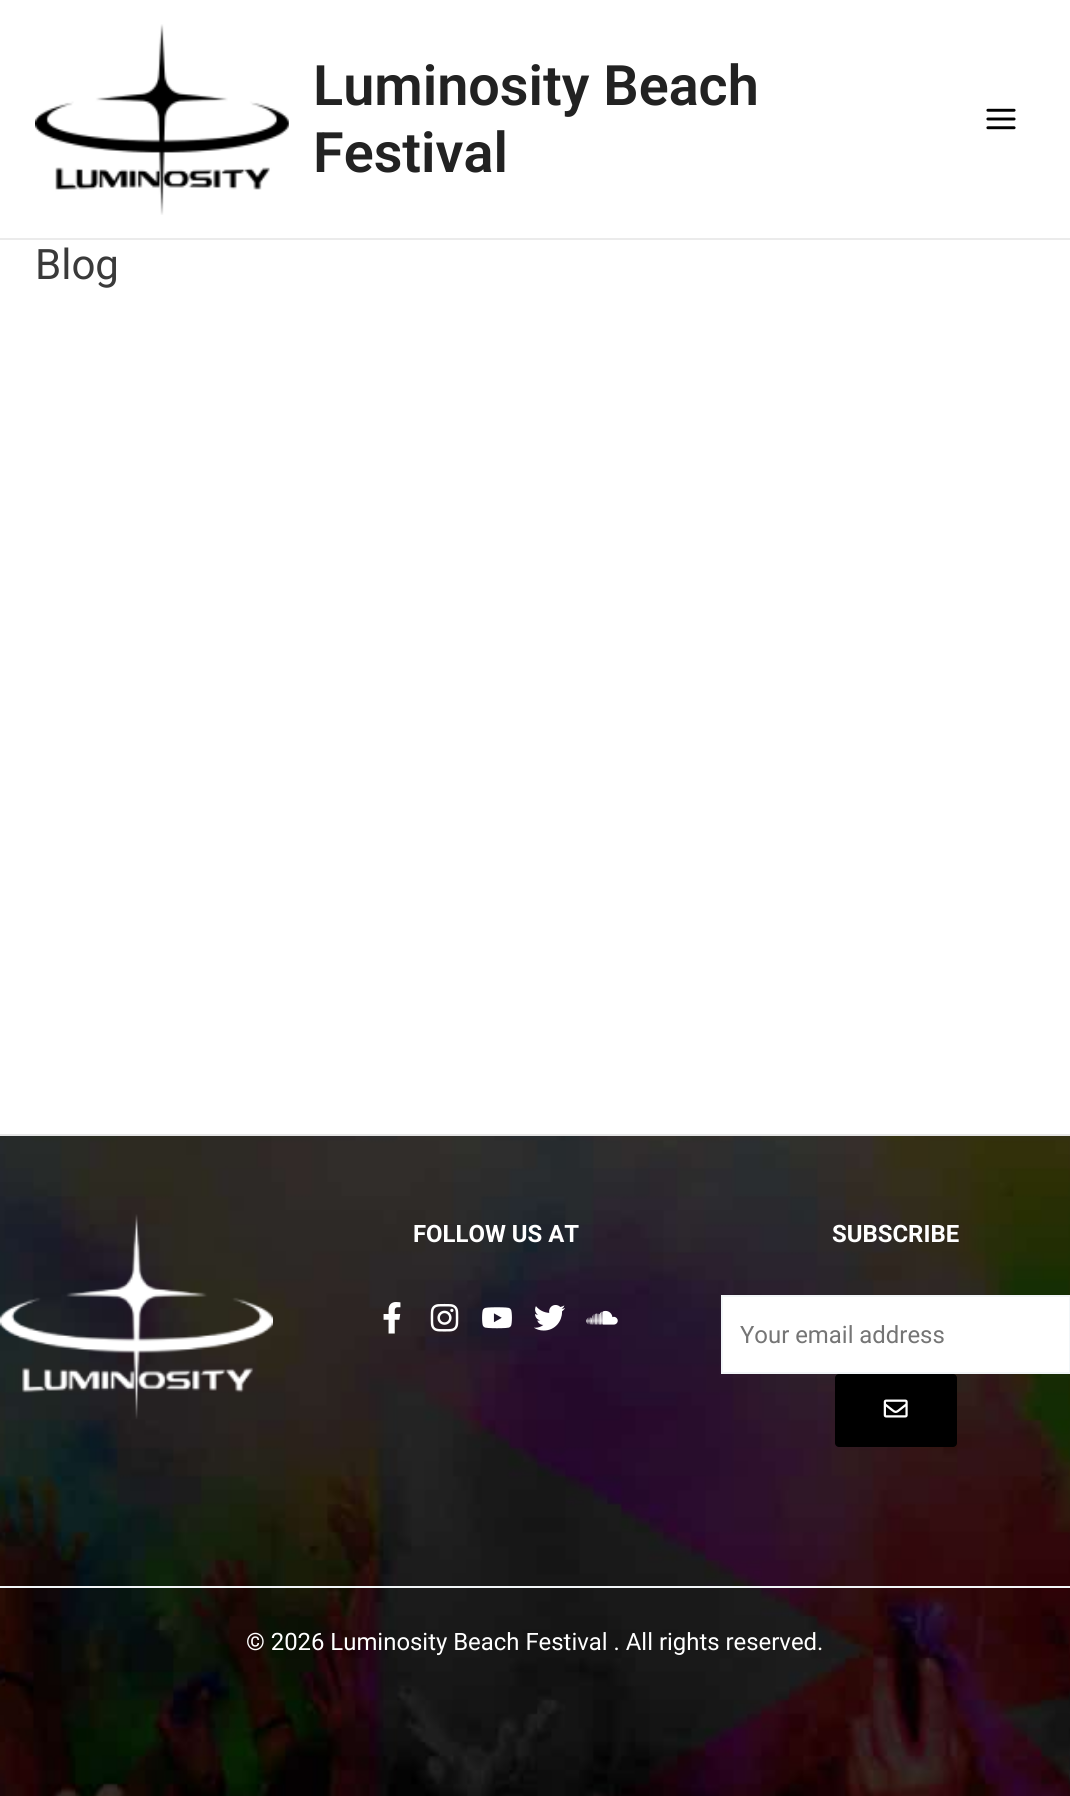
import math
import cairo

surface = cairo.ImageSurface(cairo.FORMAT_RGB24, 1070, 1796)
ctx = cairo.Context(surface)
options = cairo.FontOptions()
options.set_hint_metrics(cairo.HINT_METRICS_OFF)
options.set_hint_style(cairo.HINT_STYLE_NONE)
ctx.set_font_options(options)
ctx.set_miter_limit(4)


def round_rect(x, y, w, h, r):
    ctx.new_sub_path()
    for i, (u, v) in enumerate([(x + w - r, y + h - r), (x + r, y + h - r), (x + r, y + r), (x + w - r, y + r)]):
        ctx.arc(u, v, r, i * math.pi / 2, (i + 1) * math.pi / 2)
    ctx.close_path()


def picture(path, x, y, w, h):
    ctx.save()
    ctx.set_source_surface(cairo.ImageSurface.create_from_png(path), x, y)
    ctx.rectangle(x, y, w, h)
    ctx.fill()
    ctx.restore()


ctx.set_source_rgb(1, 1, 1)
ctx.paint()
ctx.set_source_rgb(0.918, 0.918, 0.918)
ctx.rectangle(0, 238, 1070, 2)
ctx.fill()
picture("img1.png", 35, 24, 254, 191)
ctx.select_font_face("Roboto SemiBold")
ctx.set_font_size(55.75)
ctx.set_source_rgb(0.133, 0.133, 0.133)
ctx.move_to(313, 105)
ctx.show_text("Luminosity Beach")
ctx.move_to(313, 172)
ctx.show_text("Festival")
picture("img2.png", 986, 108, 30, 22)
ctx.select_font_face("Roboto")
ctx.set_font_size(42)
ctx.set_source_rgb(0.227, 0.227, 0.227)
ctx.move_to(35, 279)
ctx.show_text("Blog")
picture("img3.png", 0, 1136, 1070, 660)
ctx.set_source_rgb(0.902, 0.902, 0.902)
ctx.rectangle(0, 1134, 1070, 2)
ctx.fill()
picture("img4.png", 0, 1214, 273, 205)
ctx.select_font_face("Roboto", cairo.FONT_SLANT_NORMAL, cairo.FONT_WEIGHT_BOLD)
ctx.set_font_size(23.9)
ctx.set_source_rgb(1, 1, 1)
ctx.move_to(413, 1242)
ctx.show_text("FOLLOW US AT")
picture("img5.png", 383, 1302, 18, 32)
picture("img6.png", 430, 1303, 29, 29)
picture("img7.png", 482, 1307, 30, 22)
picture("img8.png", 534, 1305, 31, 26)
picture("img9.png", 586, 1310, 32, 15)
ctx.move_to(832, 1242)
ctx.show_text("SUBSCRIBE")
ctx.rectangle(722, 1296, 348, 77)
ctx.fill_preserve()
ctx.set_source_rgb(0.949, 0.961, 0.969)
ctx.stroke()
ctx.select_font_face("Roboto")
ctx.set_source_rgb(0.459, 0.459, 0.459)
ctx.move_to(740, 1343)
ctx.show_text("Your email address")
ctx.set_source_rgb(0, 0, 0)
round_rect(835, 1374, 122, 73, 4)
ctx.fill()
picture("img10.png", 883, 1399, 25, 19)
ctx.set_source_rgb(0.949, 0.961, 0.969)
ctx.rectangle(0, 1586, 1070, 2)
ctx.fill()
ctx.set_source_rgb(1, 1, 1)
ctx.move_to(246, 1650)
ctx.show_text("© 2026 Luminosity Beach Festival . All rights reserved.")
surface.write_to_png("page.png")
